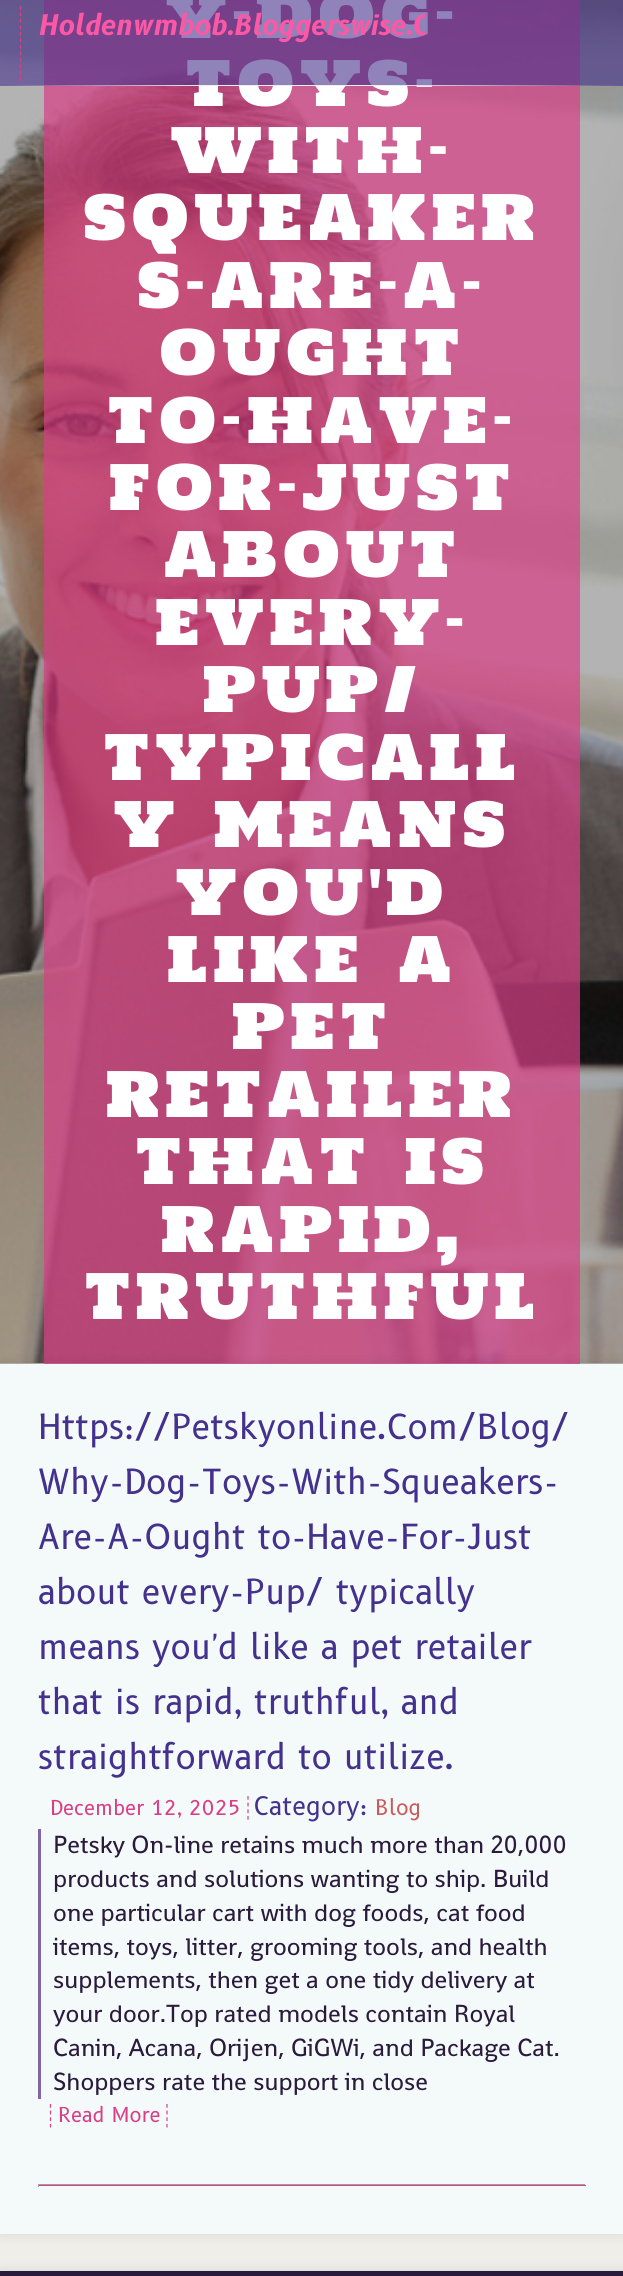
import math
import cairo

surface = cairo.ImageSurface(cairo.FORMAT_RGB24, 623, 2276)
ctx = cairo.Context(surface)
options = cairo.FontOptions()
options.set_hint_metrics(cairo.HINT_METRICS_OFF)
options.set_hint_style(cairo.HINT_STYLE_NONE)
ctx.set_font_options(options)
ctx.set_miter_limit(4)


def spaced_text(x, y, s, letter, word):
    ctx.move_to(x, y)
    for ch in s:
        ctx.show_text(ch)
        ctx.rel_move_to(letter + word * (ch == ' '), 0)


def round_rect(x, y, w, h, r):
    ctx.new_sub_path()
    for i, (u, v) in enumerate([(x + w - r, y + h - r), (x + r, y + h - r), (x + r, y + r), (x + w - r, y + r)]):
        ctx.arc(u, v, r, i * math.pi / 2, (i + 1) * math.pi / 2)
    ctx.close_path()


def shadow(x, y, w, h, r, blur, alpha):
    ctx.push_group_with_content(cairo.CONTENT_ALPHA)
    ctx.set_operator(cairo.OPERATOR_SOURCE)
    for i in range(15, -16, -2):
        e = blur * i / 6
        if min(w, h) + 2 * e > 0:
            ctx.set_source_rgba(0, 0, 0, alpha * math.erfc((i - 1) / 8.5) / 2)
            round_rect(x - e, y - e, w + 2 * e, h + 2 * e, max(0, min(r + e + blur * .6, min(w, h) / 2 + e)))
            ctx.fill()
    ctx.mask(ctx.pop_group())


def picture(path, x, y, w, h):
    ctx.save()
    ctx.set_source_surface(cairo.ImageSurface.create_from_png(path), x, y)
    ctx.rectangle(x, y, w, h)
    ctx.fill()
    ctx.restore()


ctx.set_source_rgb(0.937, 0.933, 0.914)
ctx.paint()
ctx.set_source_rgb(0.702, 0.702, 0.702)
ctx.rectangle(0, 1363, 623, 1)
ctx.fill()
picture("img1.png", 0, 0, 623, 1364)
ctx.set_source_rgba(0.851, 0.247, 0.529, 0.7)
ctx.rectangle(44, 0, 536, 1364)
ctx.fill()
ctx.select_font_face("Holtwood One SC")
ctx.set_font_size(61.25)
ctx.set_source_rgb(1, 1, 1)
spaced_text(165, 38, "Y-DOG-", 5, 0)
spaced_text(185, 106, "TOYS-", 5, 0)
spaced_text(170, 173, "WITH-", 5, 0)
spaced_text(83, 240, "SQUEAKER", 5, 0)
spaced_text(137, 308, "S-ARE-A-", 5, 0)
spaced_text(159, 375, "OUGHT", 5, 0)
spaced_text(107, 443, "TO-HAVE-", 5, 0)
spaced_text(109, 510, "FOR-JUST", 5, 0)
spaced_text(163, 577, "ABOUT", 5, 0)
spaced_text(155, 645, "EVERY-", 5, 0)
spaced_text(203, 712, "PUP/", 5, 0)
spaced_text(103, 780, "TYPICALL", 5, 0)
spaced_text(113, 847, "Y MEANS", 5, 10)
spaced_text(175, 915, "YOU'D", 5, 0)
spaced_text(167, 982, "LIKE A", 5, 10)
spaced_text(232, 1049, "PET", 5, 0)
spaced_text(106, 1117, "RETAILER", 5, 0)
spaced_text(135, 1184, "THAT IS", 5, 10)
spaced_text(161, 1252, "RAPID,", 5, 0)
spaced_text(84, 1319, "TRUTHFUL", 5, 0)
picture("img2.png", 270, 1363, 130, 1)
ctx.set_source_rgb(0, 0, 0)
shadow(0, 1364, 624, 870, 0, 6, 0.1)
ctx.set_source_rgb(0.957, 0.976, 0.98)
ctx.rectangle(0, 1364, 623, 870)
ctx.fill()
ctx.select_font_face("B612")
ctx.set_font_size(33.75)
ctx.set_source_rgb(0.267, 0.192, 0.553)
ctx.move_to(38, 1439)
ctx.show_text("Https://Petskyonline.Com/Blog/")
ctx.move_to(38, 1494)
ctx.show_text("Why-Dog-Toys-With-Squeakers-")
ctx.move_to(38, 1549)
ctx.show_text("Are-A-Ought to-Have-For-Just")
ctx.move_to(38, 1604)
ctx.show_text("about every-Pup/ typically")
ctx.move_to(38, 1659)
ctx.show_text("means you'd like a pet retailer")
ctx.move_to(38, 1714)
ctx.show_text("that is rapid, truthful, and")
ctx.move_to(38, 1769)
ctx.show_text("straightforward to utilize.")
ctx.set_font_size(20)
ctx.set_source_rgb(0.851, 0.247, 0.529)
ctx.move_to(50, 1815)
ctx.show_text("December 12, 2025")
ctx.new_path()
ctx.move_to(248, 1796)
ctx.line_to(248, 1820)
ctx.set_line_width(1.2)
ctx.set_dash([3.75, 2.91])
ctx.stroke()
ctx.set_font_size(25)
ctx.set_source_rgb(0.267, 0.192, 0.553)
ctx.move_to(254, 1815)
ctx.show_text("Category:")
ctx.set_font_size(21)
ctx.set_source_rgb(0.792, 0.353, 0.357)
ctx.move_to(375, 1815)
ctx.show_text("Blog")
ctx.set_source_rgb(0.51, 0.396, 0.655)
ctx.rectangle(38, 1829, 3, 270)
ctx.fill()
ctx.select_font_face("Shanti")
ctx.set_font_size(25)
ctx.set_source_rgb(0.165, 0.106, 0.235)
ctx.move_to(53, 1853)
ctx.show_text("Petsky On-line retains much more than 20,000")
ctx.move_to(53, 1887)
ctx.show_text("products and solutions wanting to ship. Build")
ctx.move_to(53, 1921)
ctx.show_text("one particular cart with dog foods, cat food")
ctx.move_to(53, 1955)
ctx.show_text("items, toys, litter, grooming tools, and health")
ctx.move_to(53, 1988)
ctx.show_text("supplements, then get a one tidy delivery at")
ctx.move_to(53, 2022)
ctx.show_text("your door.Top rated models contain Royal")
ctx.move_to(53, 2056)
ctx.show_text("Canin, Acana, Orijen, GiGWi, and Package Cat.")
ctx.move_to(53, 2090)
ctx.show_text("Shoppers rate the support in close")
ctx.select_font_face("B612")
ctx.set_font_size(20)
ctx.set_source_rgb(0.851, 0.247, 0.529)
ctx.move_to(58, 2122)
ctx.show_text("Read More")
ctx.new_path()
ctx.move_to(50.5, 2104)
ctx.line_to(50.5, 2127.5)
ctx.stroke()
ctx.new_path()
ctx.move_to(167, 2104)
ctx.line_to(167, 2127.5)
ctx.stroke()
ctx.set_source_rgb(0.624, 0.624, 0.624)
ctx.rectangle(38, 2184, 548, 1)
ctx.fill()
ctx.set_source_rgb(0.933, 0.933, 0.933)
ctx.rectangle(585, 2184, 1, 3)
ctx.fill()
ctx.set_source_rgb(0.851, 0.247, 0.529)
ctx.rectangle(38, 2185, 548, 1)
ctx.fill()
ctx.set_source_rgb(0.624, 0.624, 0.624)
ctx.rectangle(38, 2184, 1, 3)
ctx.fill()
ctx.set_source_rgba(0.267, 0.192, 0.553, 0.6)
ctx.rectangle(0, 0, 623, 86)
ctx.fill()
ctx.new_path()
ctx.move_to(20.5, 6)
ctx.line_to(20.5, 81)
ctx.set_source_rgb(0.851, 0.247, 0.529)
ctx.set_dash([3.75, 2.73])
ctx.stroke()
ctx.save()
ctx.rectangle(15, 6, 410, 75)
ctx.clip()
ctx.select_font_face("B612", cairo.FONT_SLANT_ITALIC, cairo.FONT_WEIGHT_BOLD)
ctx.set_font_size(27.5)
ctx.set_source_rgb(0.992, 0.345, 0.647)
ctx.move_to(38, 35)
ctx.show_text("Holdenwmbob.Bloggerswise.C")
ctx.restore()
gradient = cairo.LinearGradient(0, 86, 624, 86)
gradient.add_color_stop_rgba(0, 0.933, 0.933, 0.933, 0)
gradient.add_color_stop_rgba(0.33, 0.933, 0.933, 0.933, 1)
gradient.add_color_stop_rgba(0.62, 0.933, 0.933, 0.933, 1)
gradient.add_color_stop_rgba(1, 0.933, 0.933, 0.933, 0)
ctx.set_source(gradient)
ctx.rectangle(0, 85, 623, 1)
ctx.fill()
ctx.set_source_rgb(0, 0, 0)
shadow(0, 2271, 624, 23, 0, 6, 0.1)
ctx.set_source_rgb(0.165, 0.106, 0.235)
ctx.rectangle(0, 2271, 623, 5)
ctx.fill()
surface.write_to_png("page.png")
